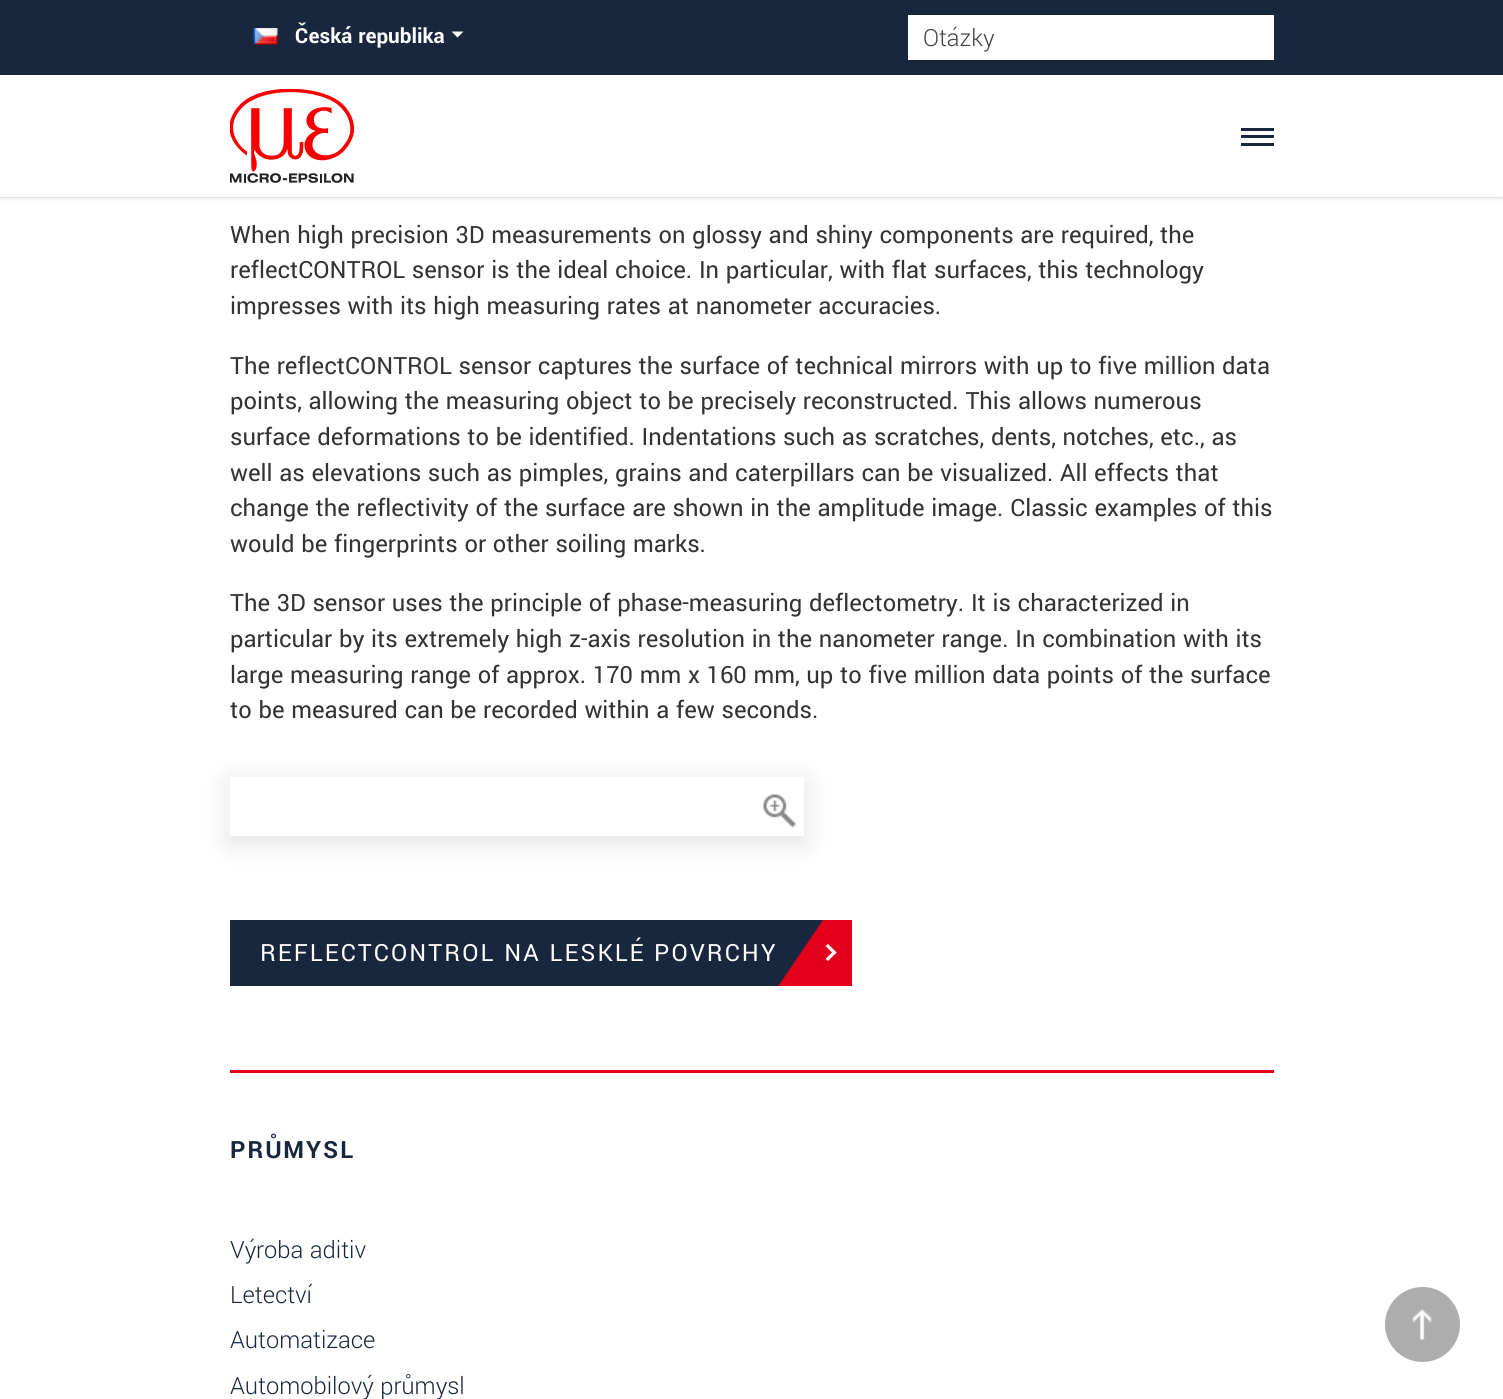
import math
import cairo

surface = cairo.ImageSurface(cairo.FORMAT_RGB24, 1503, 1399)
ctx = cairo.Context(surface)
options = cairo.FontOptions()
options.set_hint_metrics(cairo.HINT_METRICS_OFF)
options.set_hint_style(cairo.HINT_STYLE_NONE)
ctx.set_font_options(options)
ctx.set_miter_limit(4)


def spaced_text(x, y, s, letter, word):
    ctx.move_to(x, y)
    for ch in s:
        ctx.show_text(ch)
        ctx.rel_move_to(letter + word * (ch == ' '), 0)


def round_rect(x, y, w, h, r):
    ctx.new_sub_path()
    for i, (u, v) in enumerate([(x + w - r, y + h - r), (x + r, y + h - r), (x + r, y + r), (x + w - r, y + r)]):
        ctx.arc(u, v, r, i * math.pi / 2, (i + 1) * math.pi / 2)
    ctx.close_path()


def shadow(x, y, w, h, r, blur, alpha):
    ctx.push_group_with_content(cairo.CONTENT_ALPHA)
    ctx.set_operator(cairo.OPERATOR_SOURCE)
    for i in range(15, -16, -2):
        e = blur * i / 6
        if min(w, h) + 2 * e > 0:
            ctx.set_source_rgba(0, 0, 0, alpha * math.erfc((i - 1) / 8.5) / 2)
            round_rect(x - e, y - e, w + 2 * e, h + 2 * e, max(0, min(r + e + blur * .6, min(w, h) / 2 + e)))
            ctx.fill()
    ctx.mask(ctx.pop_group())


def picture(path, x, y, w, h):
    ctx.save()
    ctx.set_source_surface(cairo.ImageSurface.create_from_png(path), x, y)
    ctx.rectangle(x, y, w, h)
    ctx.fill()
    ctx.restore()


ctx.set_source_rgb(1, 1, 1)
ctx.paint()
ctx.save()
ctx.set_fill_rule(cairo.FILL_RULE_EVEN_ODD)
ctx.new_path()
ctx.move_to(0, 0)
ctx.line_to(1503, 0)
ctx.line_to(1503, 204)
ctx.line_to(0, 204)
ctx.close_path()
ctx.move_to(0, 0)
ctx.line_to(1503, 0)
ctx.line_to(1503, 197)
ctx.line_to(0, 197)
ctx.close_path()
ctx.clip()
ctx.set_source_rgb(0.733, 0.733, 0.733)
shadow(0, 0, 1503, 197, 0, 2, 1)
ctx.restore()
ctx.set_source_rgba(1, 1, 1, 0.96)
ctx.rectangle(0, 196, 1503, 1)
ctx.fill()
ctx.set_source_rgb(0.094, 0.153, 0.243)
ctx.rectangle(0, 0, 1503, 75)
ctx.fill()
picture("img1.png", 253, 28, 25, 17)
ctx.select_font_face("Yantramanav", cairo.FONT_SLANT_NORMAL, cairo.FONT_WEIGHT_BOLD)
ctx.set_font_size(23)
ctx.set_source_rgb(1, 1, 1)
ctx.move_to(295, 43)
ctx.show_text("Česká republika")
ctx.new_path()
ctx.move_to(451.5, 31.5)
ctx.line_to(463.5, 31.5)
ctx.line_to(457.5, 37.5)
ctx.close_path()
ctx.fill()
ctx.rectangle(908, 15, 366, 45)
ctx.fill()
ctx.select_font_face("Yantramanav Light")
ctx.set_font_size(26.4)
ctx.set_source_rgb(0.263, 0.263, 0.263)
ctx.move_to(923, 46)
ctx.show_text("Otázky")
picture("img2.png", 230, 89, 124, 94)
ctx.set_source_rgb(0.094, 0.153, 0.243)
ctx.rectangle(1241, 128, 33, 3)
ctx.fill()
ctx.rectangle(1241, 135, 33, 3)
ctx.fill()
ctx.rectangle(1241, 143, 33, 3)
ctx.fill()
ctx.select_font_face("Yantramanav")
ctx.set_source_rgb(0.2, 0.2, 0.2)
ctx.move_to(230, 243)
ctx.show_text("When high precision 3D measurements on glossy and shiny components are required, the")
ctx.move_to(230, 278)
ctx.show_text("reflectCONTROL sensor is the ideal choice. In particular, with flat surfaces, this technology")
ctx.move_to(230, 314)
ctx.show_text("impresses with its high measuring rates at nanometer accuracies.")
ctx.move_to(230, 374)
ctx.show_text("The reflectCONTROL sensor captures the surface of technical mirrors with up to five million data")
ctx.move_to(230, 409)
ctx.show_text("points, allowing the measuring object to be precisely reconstructed. This allows numerous")
ctx.move_to(230, 445)
ctx.show_text("surface deformations to be identified. Indentations such as scratches, dents, notches, etc., as")
ctx.move_to(230, 481)
ctx.show_text("well as elevations such as pimples, grains and caterpillars can be visualized. All effects that")
ctx.move_to(230, 516)
ctx.show_text("change the reflectivity of the surface are shown in the amplitude image. Classic examples of this")
ctx.move_to(230, 552)
ctx.show_text("would be fingerprints or other soiling marks.")
ctx.move_to(230, 611)
ctx.show_text("The 3D sensor uses the principle of phase-measuring deflectometry. It is characterized in")
ctx.move_to(230, 647)
ctx.show_text("particular by its extremely high z-axis resolution in the nanometer range. In combination with its")
ctx.move_to(230, 683)
ctx.show_text("large measuring range of approx. 170 mm x 160 mm, up to five million data points of the surface")
ctx.move_to(230, 718)
ctx.show_text("to be measured can be recorded within a few seconds.")
ctx.save()
ctx.set_fill_rule(cairo.FILL_RULE_EVEN_ODD)
ctx.new_path()
ctx.move_to(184, 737)
ctx.line_to(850, 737)
ctx.line_to(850, 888)
ctx.line_to(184, 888)
ctx.close_path()
ctx.move_to(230, 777)
ctx.line_to(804, 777)
ctx.line_to(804, 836)
ctx.line_to(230, 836)
ctx.close_path()
ctx.clip()
ctx.set_source_rgb(0, 0, 0)
shadow(227, 780, 580, 65, 0, 14, 0.1)
ctx.restore()
picture("img3.png", 763, 794, 34, 34)
ctx.set_source_rgb(0.094, 0.153, 0.243)
ctx.rectangle(230, 920, 593, 66)
ctx.fill()
ctx.set_source_rgb(1, 1, 1)
spaced_text(260, 961, "REFLECTCONTROL NA LESKLÉ POVRCHY", 2.1, 0)
ctx.save()
ctx.rectangle(230, 920, 622, 66)
ctx.clip()
ctx.set_source_rgb(0.886, 0, 0.102)
ctx.new_path()
ctx.move_to(823, 920)
ctx.line_to(853, 920)
ctx.line_to(853, 986)
ctx.line_to(779, 986)
ctx.line_to(779, 985)
ctx.close_path()
ctx.fill()
ctx.restore()
ctx.new_path()
ctx.move_to(828, 944)
ctx.line_to(836.5, 952.5)
ctx.line_to(834, 954.5)
ctx.line_to(825.5, 946)
ctx.close_path()
ctx.fill()
ctx.new_path()
ctx.move_to(834, 950.5)
ctx.line_to(836.5, 952.5)
ctx.line_to(828, 961)
ctx.line_to(825.5, 959)
ctx.close_path()
ctx.fill()
ctx.set_source_rgb(0.886, 0, 0.102)
ctx.rectangle(230, 1070, 1044, 3)
ctx.fill()
ctx.select_font_face("Yantramanav", cairo.FONT_SLANT_NORMAL, cairo.FONT_WEIGHT_BOLD)
ctx.set_source_rgb(0.094, 0.153, 0.243)
spaced_text(230, 1158, "PRŮMYSL", 2.1, 0)
ctx.select_font_face("Yantramanav Light")
ctx.move_to(230, 1258)
ctx.show_text("Výroba aditiv")
ctx.move_to(230, 1303)
ctx.show_text("Letectví")
ctx.move_to(230, 1348)
ctx.show_text("Automatizace")
ctx.move_to(230, 1394)
ctx.show_text("Automobilový průmysl")
ctx.set_source_rgb(0.678, 0.678, 0.678)
ctx.new_path()
ctx.arc(1422.5, 1324.5, 37.5, 0, 2 * math.pi)
ctx.fill()
picture("img4.png", 1412, 1309, 20, 32)
surface.write_to_png("page.png")
